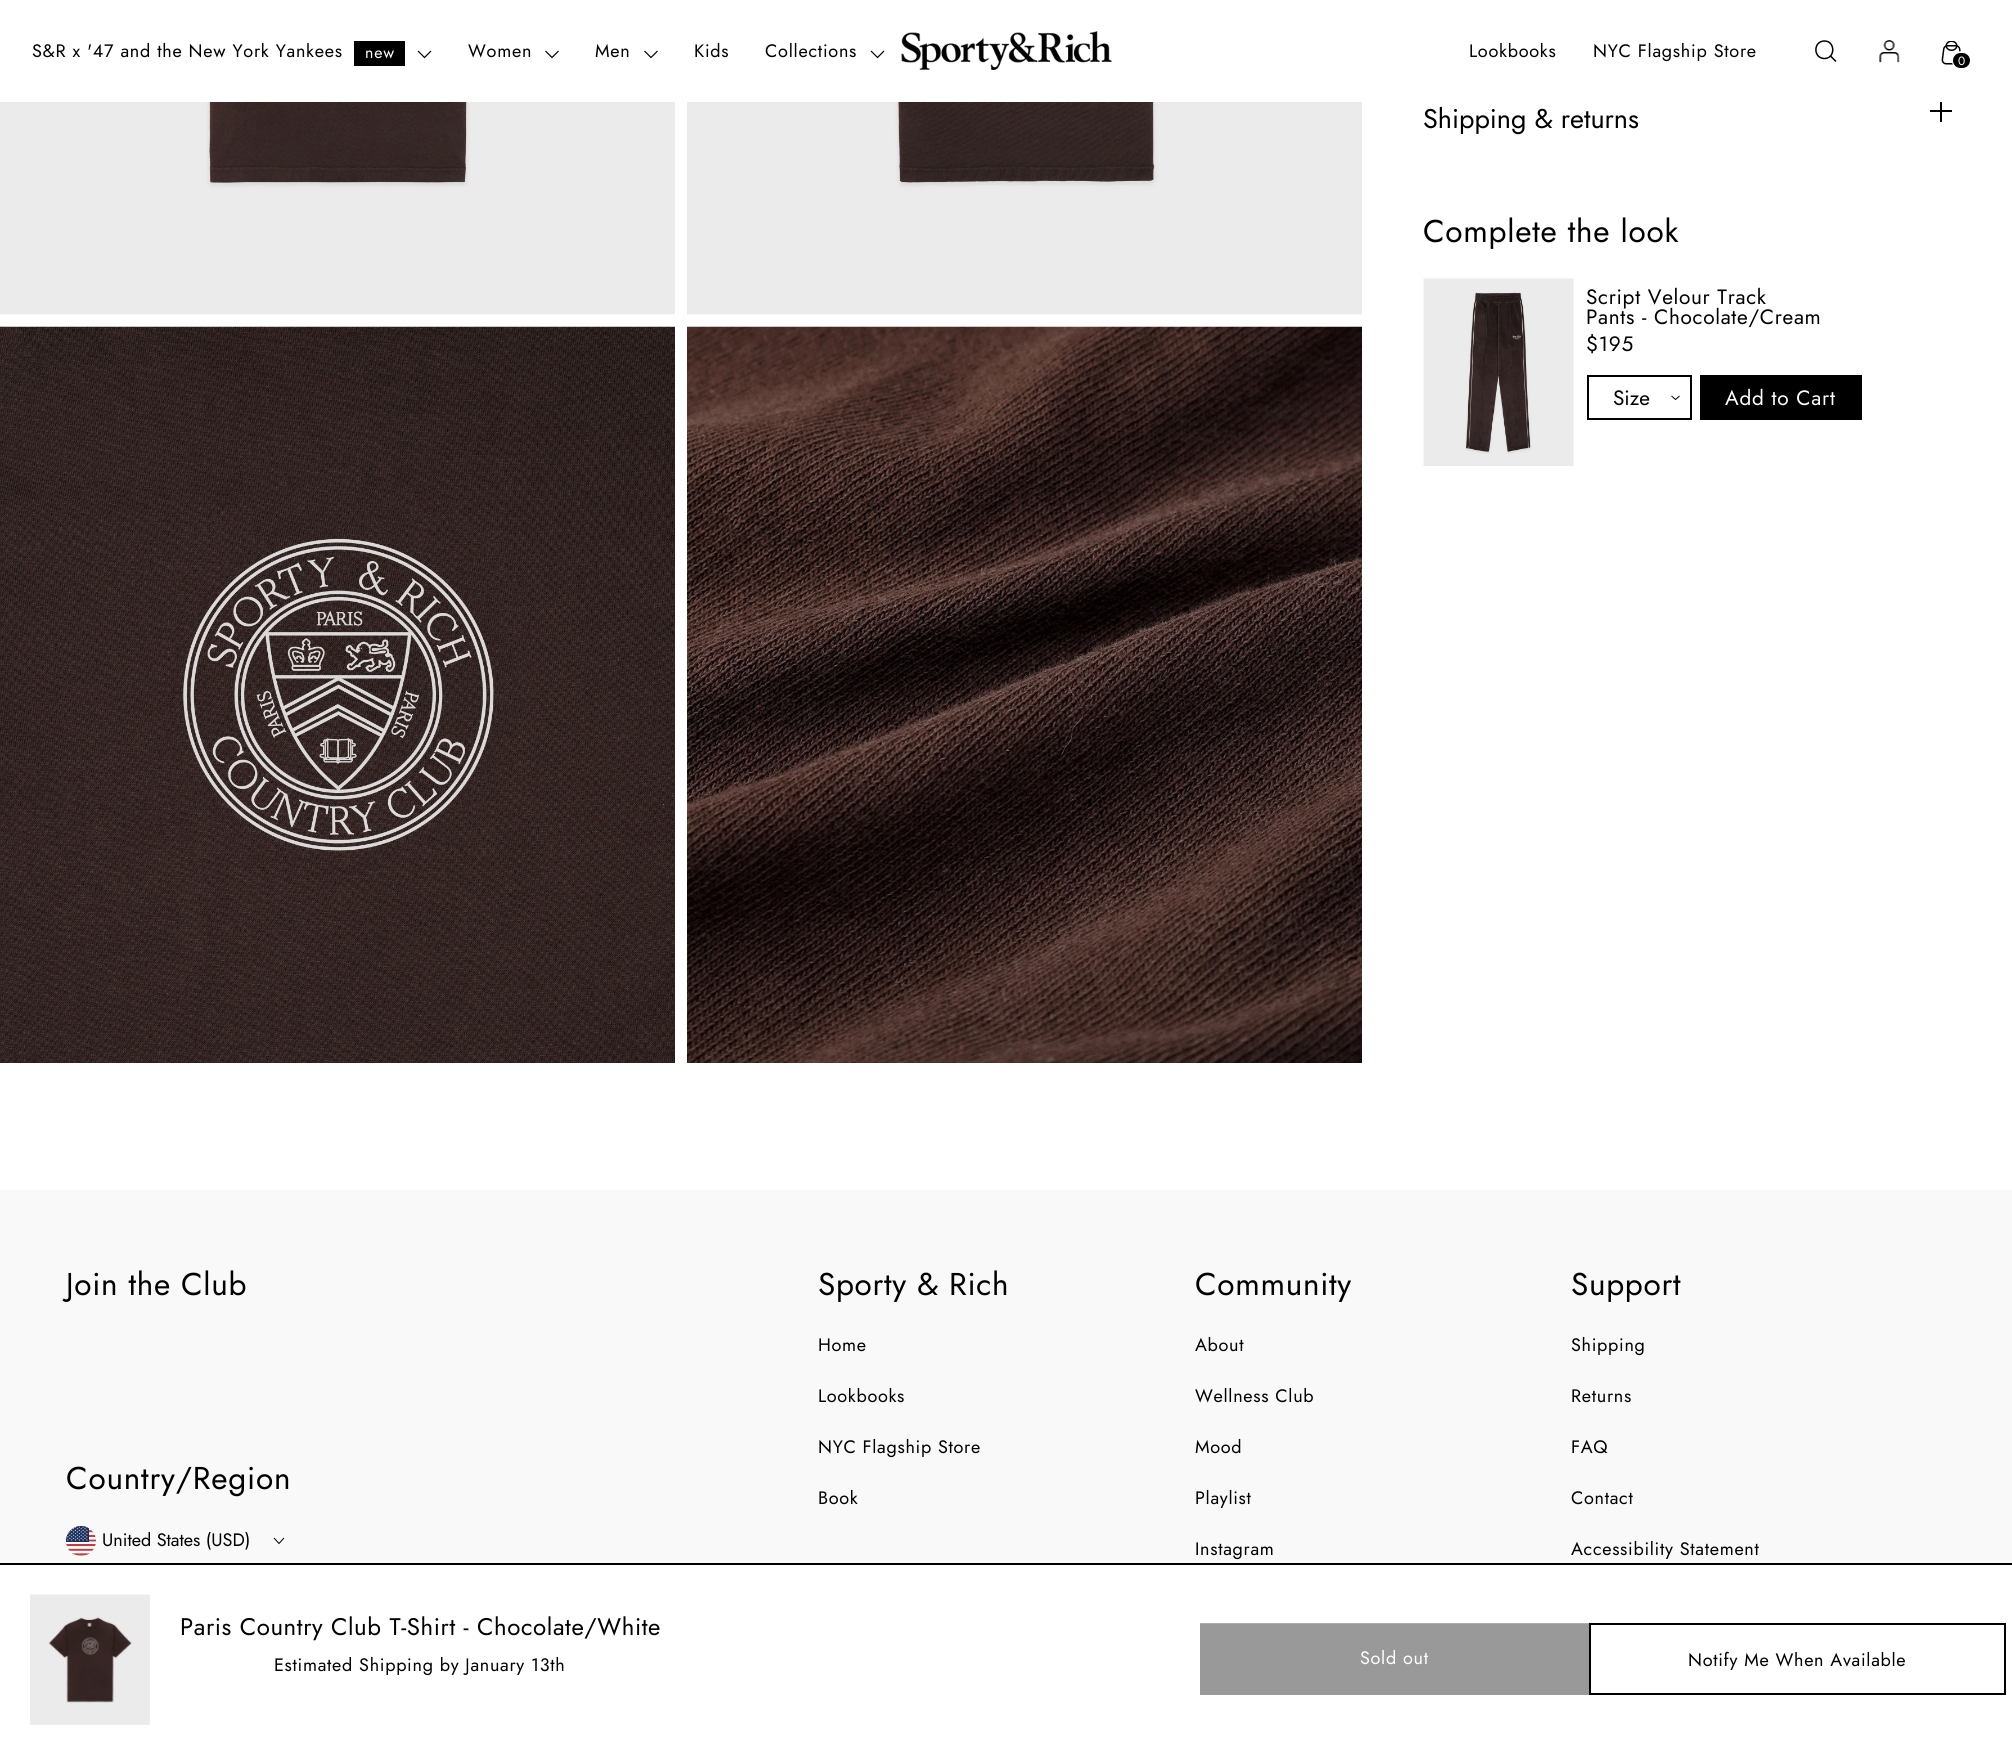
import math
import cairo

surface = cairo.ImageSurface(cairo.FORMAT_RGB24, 2012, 1754)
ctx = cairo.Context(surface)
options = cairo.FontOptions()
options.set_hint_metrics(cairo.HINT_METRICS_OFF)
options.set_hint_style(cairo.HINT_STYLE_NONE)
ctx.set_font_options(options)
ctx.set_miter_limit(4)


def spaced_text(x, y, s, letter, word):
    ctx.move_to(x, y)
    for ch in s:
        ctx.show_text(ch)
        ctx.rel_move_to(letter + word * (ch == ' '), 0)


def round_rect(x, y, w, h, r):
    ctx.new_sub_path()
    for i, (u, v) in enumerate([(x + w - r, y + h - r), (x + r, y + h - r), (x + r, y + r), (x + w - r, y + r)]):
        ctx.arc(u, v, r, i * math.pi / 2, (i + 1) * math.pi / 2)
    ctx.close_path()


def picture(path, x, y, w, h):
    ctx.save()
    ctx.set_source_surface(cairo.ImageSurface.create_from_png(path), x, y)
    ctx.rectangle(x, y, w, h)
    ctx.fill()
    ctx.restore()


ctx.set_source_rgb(1, 1, 1)
ctx.paint()
ctx.new_path()
ctx.move_to(1930, 111)
ctx.line_to(1941, 111)
ctx.move_to(1952, 111)
ctx.line_to(1941, 111)
ctx.move_to(1941, 111)
ctx.line_to(1941, 100)
ctx.move_to(1941, 111)
ctx.line_to(1941, 122)
ctx.set_source_rgb(0, 0, 0)
ctx.stroke()
ctx.set_source_rgb(1, 1, 1)
ctx.rectangle(1940, 100, 2, 2)
ctx.fill()
ctx.select_font_face("Jost")
ctx.set_font_size(18)
ctx.set_source_rgb(0, 0, 0)
spaced_text(32, 57, "S&R x '47 and the New York Yankees", 0.75, 0)
ctx.rectangle(354, 41, 51, 25)
ctx.fill()
ctx.set_font_size(16)
ctx.set_source_rgb(1, 1, 1)
spaced_text(365, 58, "new", 0.75, 0)
ctx.new_path()
ctx.move_to(418, 51)
ctx.line_to(424.5, 57.5)
ctx.line_to(431, 51)
ctx.set_source_rgb(0, 0, 0)
ctx.set_line_width(1.2)
ctx.stroke()
ctx.set_font_size(18)
spaced_text(468, 57, "Women", 0.75, 0)
ctx.new_path()
ctx.move_to(545.5, 51)
ctx.line_to(552, 57.5)
ctx.line_to(558.5, 51)
ctx.stroke()
spaced_text(595, 57, "Men", 0.75, 0)
ctx.new_path()
ctx.move_to(644.5, 51)
ctx.line_to(651, 57.5)
ctx.line_to(657.5, 51)
ctx.stroke()
spaced_text(694, 57, "Kids", 0.75, 0)
spaced_text(765, 57, "Collections", 0.75, 0)
ctx.new_path()
ctx.move_to(871, 51)
ctx.line_to(877.5, 57.5)
ctx.line_to(884, 51)
ctx.stroke()
picture("img1.png", 901, 31, 211, 39)
spaced_text(1469, 57, "Lookbooks", 0.75, 0)
spaced_text(1593, 57, "NYC Flagship Store", 0.75, 0)
ctx.new_path()
ctx.move_to(1824.5, 58.5)
ctx.curve_to(1835.5, 58.5, 1835.5, 41, 1824.5, 41)
ctx.curve_to(1813, 41, 1813, 58.5, 1824.5, 58.5)
ctx.close_path()
ctx.set_line_width(1.5)
ctx.set_line_cap(cairo.LINE_CAP_ROUND)
ctx.stroke()
ctx.new_path()
ctx.move_to(1830.5, 56)
ctx.line_to(1836, 61.5)
ctx.set_line_cap(cairo.LINE_CAP_BUTT)
ctx.stroke()
picture("img2.png", 1879, 40, 21, 23)
picture("img3.png", 1941, 41, 20, 24)
round_rect(1953, 52, 19, 18, 9)
ctx.set_source_rgb(1, 1, 1)
ctx.set_line_width(2)
ctx.stroke()
ctx.set_source_rgb(0, 0, 0)
round_rect(1954, 54, 15, 13, 6.5)
ctx.fill_preserve()
ctx.stroke()
ctx.set_font_size(12)
ctx.set_source_rgb(1, 1, 1)
spaced_text(1958, 65, "0", 0.7, 0)
picture("img4.png", 0, 102, 675, 213)
picture("img5.png", 687, 102, 675, 213)
picture("img6.png", 0, 326, 675, 737)
picture("img7.png", 687, 326, 675, 737)
ctx.set_font_size(27)
ctx.set_source_rgb(0, 0, 0)
ctx.move_to(1423, 128)
ctx.show_text("Shipping & returns")
ctx.set_font_size(31.5)
spaced_text(1423, 242, "Complete the look", 0.75, 0)
picture("img8.png", 1423, 278, 151, 188)
ctx.set_font_size(20.75)
spaced_text(1586, 304, "Script Velour Track", 0.7, 0)
spaced_text(1586, 324, "Pants - Chocolate/Cream", 0.7, 0)
spaced_text(1586, 351, "$195", 0.7, 0)
ctx.new_path()
ctx.move_to(1671.5, 396)
ctx.line_to(1675.5, 399.5)
ctx.line_to(1679.5, 396)
ctx.set_line_width(1)
ctx.stroke()
ctx.rectangle(1588, 376, 103, 43)
ctx.set_line_width(2)
ctx.stroke()
ctx.move_to(1613, 405)
ctx.show_text("Size")
ctx.save()
ctx.rectangle(1700, 375, 162, 45)
ctx.clip()
ctx.new_path()
ctx.move_to(1662, 375)
ctx.line_to(1873, 375)
ctx.line_to(1899, 420)
ctx.line_to(1688, 420)
ctx.close_path()
ctx.fill()
ctx.restore()
ctx.set_source_rgb(1, 1, 1)
spaced_text(1725, 405, "Add to Cart", 0.75, 0)
ctx.set_source_rgb(0, 0, 0)
ctx.rectangle(0, 1563, 2012, 2)
ctx.fill()
picture("img9.png", 30, 1594, 120, 131)
ctx.set_font_size(24)
spaced_text(180, 1635, "Paris Country Club T-Shirt - Chocolate/White", 0.6, 0)
ctx.set_font_size(18)
spaced_text(274, 1671, "Estimated Shipping by January 13th", 0.7, 0)
ctx.set_source_rgb(0.678, 0.678, 0.678)
ctx.rectangle(1200, 1623, 389, 1)
ctx.fill()
ctx.save()
ctx.rectangle(1200, 1623, 389, 72)
ctx.clip()
ctx.set_source_rgb(0.6, 0.6, 0.6)
ctx.new_path()
ctx.move_to(1121, 1624)
ctx.line_to(1625, 1624)
ctx.line_to(1667, 1696)
ctx.line_to(1163, 1696)
ctx.close_path()
ctx.fill()
ctx.restore()
ctx.set_source_rgb(1, 1, 1)
spaced_text(1360, 1664, "Sold out", 0.7, 0)
ctx.rectangle(1590, 1624, 415, 70)
ctx.set_source_rgb(0, 0, 0)
ctx.stroke()
spaced_text(1688, 1666, "Notify Me When Available", 0.7, 0)
ctx.set_source_rgb(0.973, 0.973, 0.973)
ctx.rectangle(0, 1190, 2012, 373)
ctx.fill()
ctx.set_font_size(31.5)
ctx.set_source_rgb(0, 0, 0)
spaced_text(66, 1295, "Join the Club", 0.7, 0)
spaced_text(66, 1489, "Country/Region", 0.8, 0)
picture("img10.png", 66, 1526, 30, 30)
ctx.set_font_size(18)
ctx.move_to(102, 1546)
ctx.show_text("United States (USD)")
ctx.new_path()
ctx.move_to(274, 1538)
ctx.line_to(279, 1543.5)
ctx.line_to(284, 1538)
ctx.set_line_width(1)
ctx.stroke()
ctx.set_font_size(31.5)
spaced_text(818, 1295, "Sporty & Rich", 0.7, 0)
ctx.set_font_size(18)
spaced_text(818, 1351, "Home", 0.7, 0)
spaced_text(818, 1402, "Lookbooks", 0.7, 0)
spaced_text(818, 1453, "NYC Flagship Store", 0.7, 0)
spaced_text(818, 1504, "Book", 0.7, 0)
ctx.set_font_size(31.5)
spaced_text(1195, 1295, "Community", 0.7, 0)
ctx.set_font_size(18)
spaced_text(1195, 1351, "About", 0.7, 0)
spaced_text(1195, 1402, "Wellness Club", 0.7, 0)
spaced_text(1195, 1453, "Mood", 0.7, 0)
spaced_text(1195, 1504, "Playlist", 0.7, 0)
spaced_text(1195, 1555, "Instagram", 0.7, 0)
ctx.set_font_size(31.5)
spaced_text(1571, 1295, "Support", 0.7, 0)
ctx.set_font_size(18)
spaced_text(1571, 1351, "Shipping", 0.7, 0)
spaced_text(1571, 1402, "Returns", 0.7, 0)
spaced_text(1571, 1453, "FAQ", 0.7, 0)
spaced_text(1571, 1504, "Contact", 0.7, 0)
spaced_text(1571, 1555, "Accessibility Statement", 0.7, 0)
surface.write_to_png("page.png")
